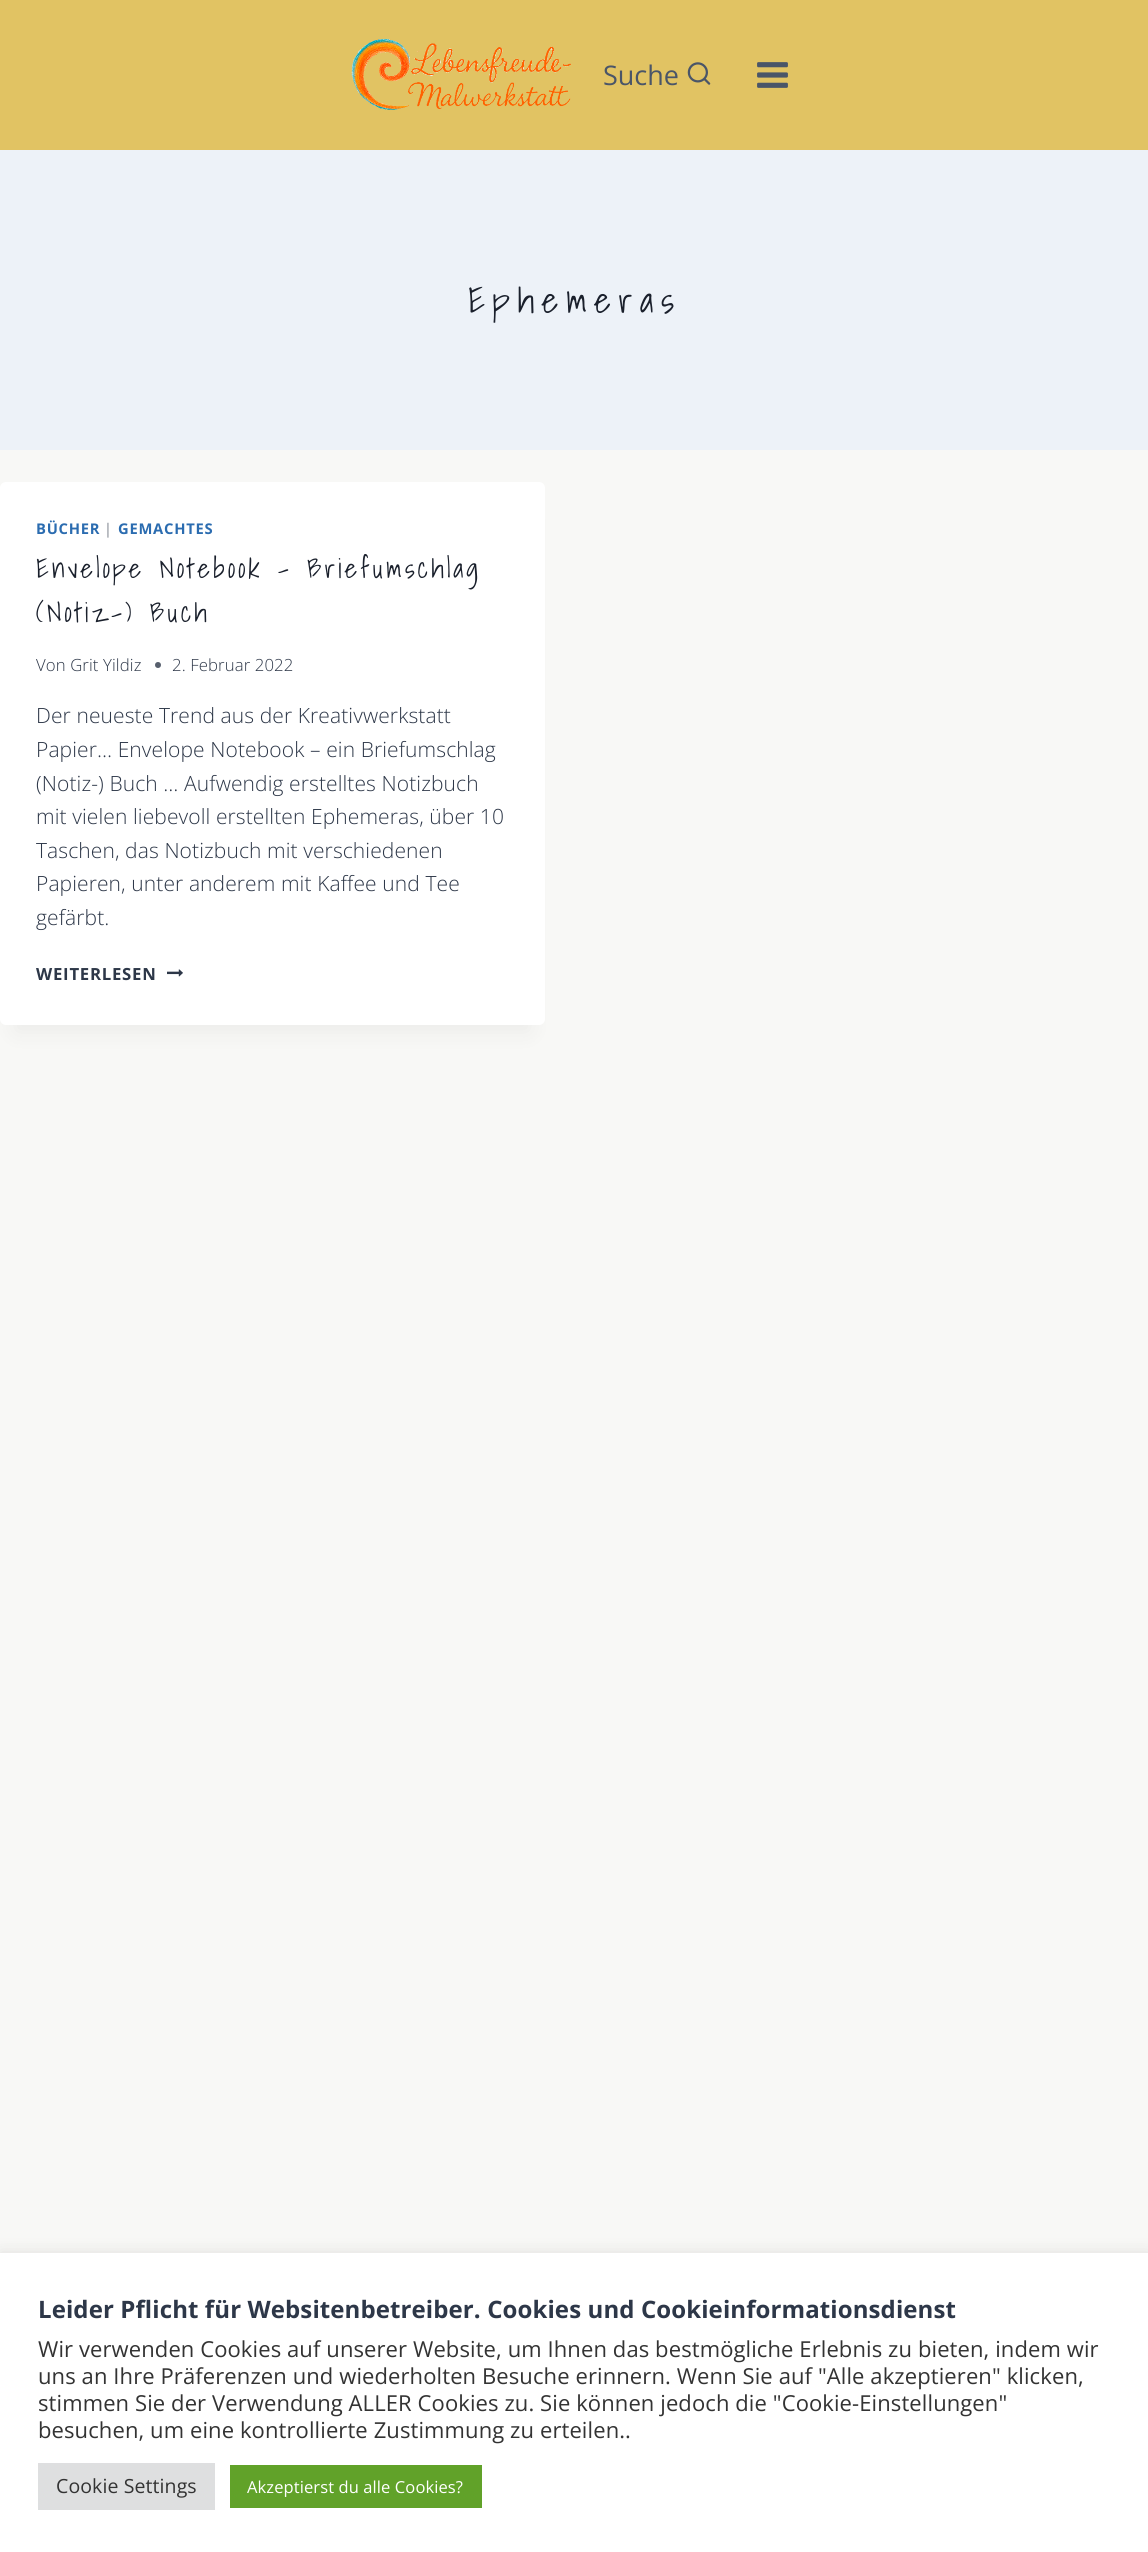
import math
import cairo

surface = cairo.ImageSurface(cairo.FORMAT_RGB24, 1148, 2552)
ctx = cairo.Context(surface)
options = cairo.FontOptions()
options.set_hint_metrics(cairo.HINT_METRICS_OFF)
options.set_hint_style(cairo.HINT_STYLE_NONE)
ctx.set_font_options(options)
ctx.set_miter_limit(4)


def spaced_text(x, y, s, letter, word):
    ctx.move_to(x, y)
    for ch in s:
        ctx.show_text(ch)
        ctx.rel_move_to(letter + word * (ch == ' '), 0)


def round_rect(x, y, w, h, r):
    ctx.new_sub_path()
    for i, (u, v) in enumerate([(x + w - r, y + h - r), (x + r, y + h - r), (x + r, y + r), (x + w - r, y + r)]):
        ctx.arc(u, v, r, i * math.pi / 2, (i + 1) * math.pi / 2)
    ctx.close_path()


def shadow(x, y, w, h, r, blur, alpha):
    ctx.push_group_with_content(cairo.CONTENT_ALPHA)
    ctx.set_operator(cairo.OPERATOR_SOURCE)
    for i in range(15, -16, -2):
        e = blur * i / 6
        if min(w, h) + 2 * e > 0:
            ctx.set_source_rgba(0, 0, 0, alpha * math.erfc((i - 1) / 8.5) / 2)
            round_rect(x - e, y - e, w + 2 * e, h + 2 * e, max(0, min(r + e + blur * .6, min(w, h) / 2 + e)))
            ctx.fill()
    ctx.mask(ctx.pop_group())


def picture(path, x, y, w, h):
    ctx.save()
    ctx.set_source_surface(cairo.ImageSurface.create_from_png(path), x, y)
    ctx.rectangle(x, y, w, h)
    ctx.fill()
    ctx.restore()


ctx.set_source_rgb(0.969, 0.969, 0.961)
ctx.paint()
ctx.set_source_rgb(0.882, 0.765, 0.388)
ctx.rectangle(0, 0, 1148, 150)
ctx.fill()
picture("img1.png", 351, 38, 220, 72)
ctx.select_font_face("Open Sans")
ctx.set_font_size(27)
ctx.set_source_rgb(0.29, 0.333, 0.408)
ctx.move_to(603, 85)
ctx.show_text("Suche")
picture("img2.png", 687, 62, 24, 23)
picture("img3.png", 757, 62, 31, 26)
ctx.set_source_rgb(0.929, 0.949, 0.969)
ctx.rectangle(0, 150, 1148, 300)
ctx.fill()
ctx.select_font_face("Shadows Into Light Light")
ctx.set_font_size(36)
ctx.set_source_rgb(0.102, 0.125, 0.173)
spaced_text(468, 313, "Ephemeras", 7.5, 0)
ctx.set_source_rgb(0, 0, 0)
shadow(15, 519, 515, 513, 0, 11, 0.05)
ctx.set_source_rgb(1, 1, 1)
round_rect(0, 482, 545, 543, 6)
ctx.fill()
ctx.select_font_face("Open Sans", cairo.FONT_SLANT_NORMAL, cairo.FONT_WEIGHT_BOLD)
ctx.set_font_size(14.75)
ctx.set_source_rgb(0.169, 0.424, 0.69)
spaced_text(36, 534, "BÜCHER", 0.75, 0)
ctx.select_font_face("Open Sans Light")
ctx.set_source_rgb(0.176, 0.216, 0.282)
spaced_text(104, 534, "|", 0.75, 0)
ctx.select_font_face("Open Sans", cairo.FONT_SLANT_NORMAL, cairo.FONT_WEIGHT_BOLD)
ctx.set_source_rgb(0.169, 0.424, 0.69)
spaced_text(118, 534, "GEMACHTES", 0.75, 0)
ctx.select_font_face("Shadows Into Light Light")
ctx.set_font_size(27)
ctx.set_source_rgb(0.102, 0.125, 0.173)
spaced_text(36, 578, "Envelope Notebook – Briefumschlag", 3, 0)
spaced_text(36, 622, "(Notiz-) Buch", 3, 0)
ctx.select_font_face("Open Sans Light")
ctx.set_font_size(16.75)
ctx.set_source_rgb(0.176, 0.216, 0.282)
spaced_text(36, 671, "Von Grit Yildiz", 0.1, 0)
ctx.set_source_rgb(0.341, 0.373, 0.427)
ctx.new_path()
ctx.arc(158, 665, 3, 0, 2 * math.pi)
ctx.fill()
ctx.set_source_rgb(0.176, 0.216, 0.282)
spaced_text(172, 671, "2. Februar 2022", 0.1, 0)
ctx.set_font_size(21)
spaced_text(36, 723, "Der neueste Trend aus der Kreativwerkstatt", 0.1, 0)
spaced_text(36, 757, "Papier… Envelope Notebook – ein Briefumschlag", 0.1, 0)
spaced_text(36, 791, "(Notiz-) Buch … Aufwendig erstelltes Notizbuch", 0.1, 0)
spaced_text(36, 824, "mit vielen liebevoll erstellten Ephemeras, über 10", 0.1, 0)
spaced_text(36, 858, "Taschen, das Notizbuch mit verschiedenen", 0.1, 0)
spaced_text(36, 891, "Papieren, unter anderem mit Kaffee und Tee", 0.1, 0)
spaced_text(36, 925, "gefärbt.", 0.1, 0)
ctx.select_font_face("Open Sans", cairo.FONT_SLANT_NORMAL, cairo.FONT_WEIGHT_BOLD)
ctx.set_font_size(16.75)
spaced_text(36, 980, "WEITERLESEN", 0.75, 0)
picture("img4.png", 167, 969, 16, 8)
ctx.set_source_rgb(0.675, 0.671, 0.671)
shadow(0, 2252, 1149, 300, 0, 7.5, 0.3)
ctx.set_source_rgb(1, 1, 1)
ctx.rectangle(0, 2253, 1148, 299)
ctx.fill()
ctx.set_font_size(24)
ctx.set_source_rgb(0.176, 0.216, 0.282)
spaced_text(38, 2318, "Leider Pflicht für Websitenbetreiber. Cookies und Cookieinformationsdienst", 0.1, 0)
ctx.select_font_face("Open Sans")
ctx.set_font_size(22)
ctx.set_source_rgb(0.2, 0.2, 0.2)
spaced_text(38, 2357, "Wir verwenden Cookies auf unserer Website, um Ihnen das bestmögliche Erlebnis zu bieten, indem wir", 0.1, 0)
spaced_text(38, 2384, "uns an Ihre Präferenzen und wiederholten Besuche erinnern. Wenn Sie auf \"Alle akzeptieren\" klicken,", 0.1, 0)
spaced_text(38, 2411, "stimmen Sie der Verwendung ALLER Cookies zu. Sie können jedoch die \"Cookie-Einstellungen\"", 0.1, 0)
spaced_text(38, 2438, "besuchen, um eine kontrollierte Zustimmung zu erteilen..", 0.1, 0)
ctx.set_source_rgb(0.871, 0.875, 0.878)
ctx.rectangle(38, 2463, 177, 47)
ctx.fill()
ctx.set_font_size(19.5)
ctx.set_source_rgb(0.2, 0.2, 0.2)
spaced_text(56, 2493, "Cookie Settings", 0.1, 0)
ctx.set_source_rgb(0.38, 0.635, 0.161)
ctx.rectangle(230, 2465, 252, 43)
ctx.fill()
ctx.set_font_size(16.5)
ctx.set_source_rgb(1, 1, 1)
spaced_text(247, 2493, "Akzeptierst du alle Cookies?", 0.1, 0)
surface.write_to_png("page.png")
